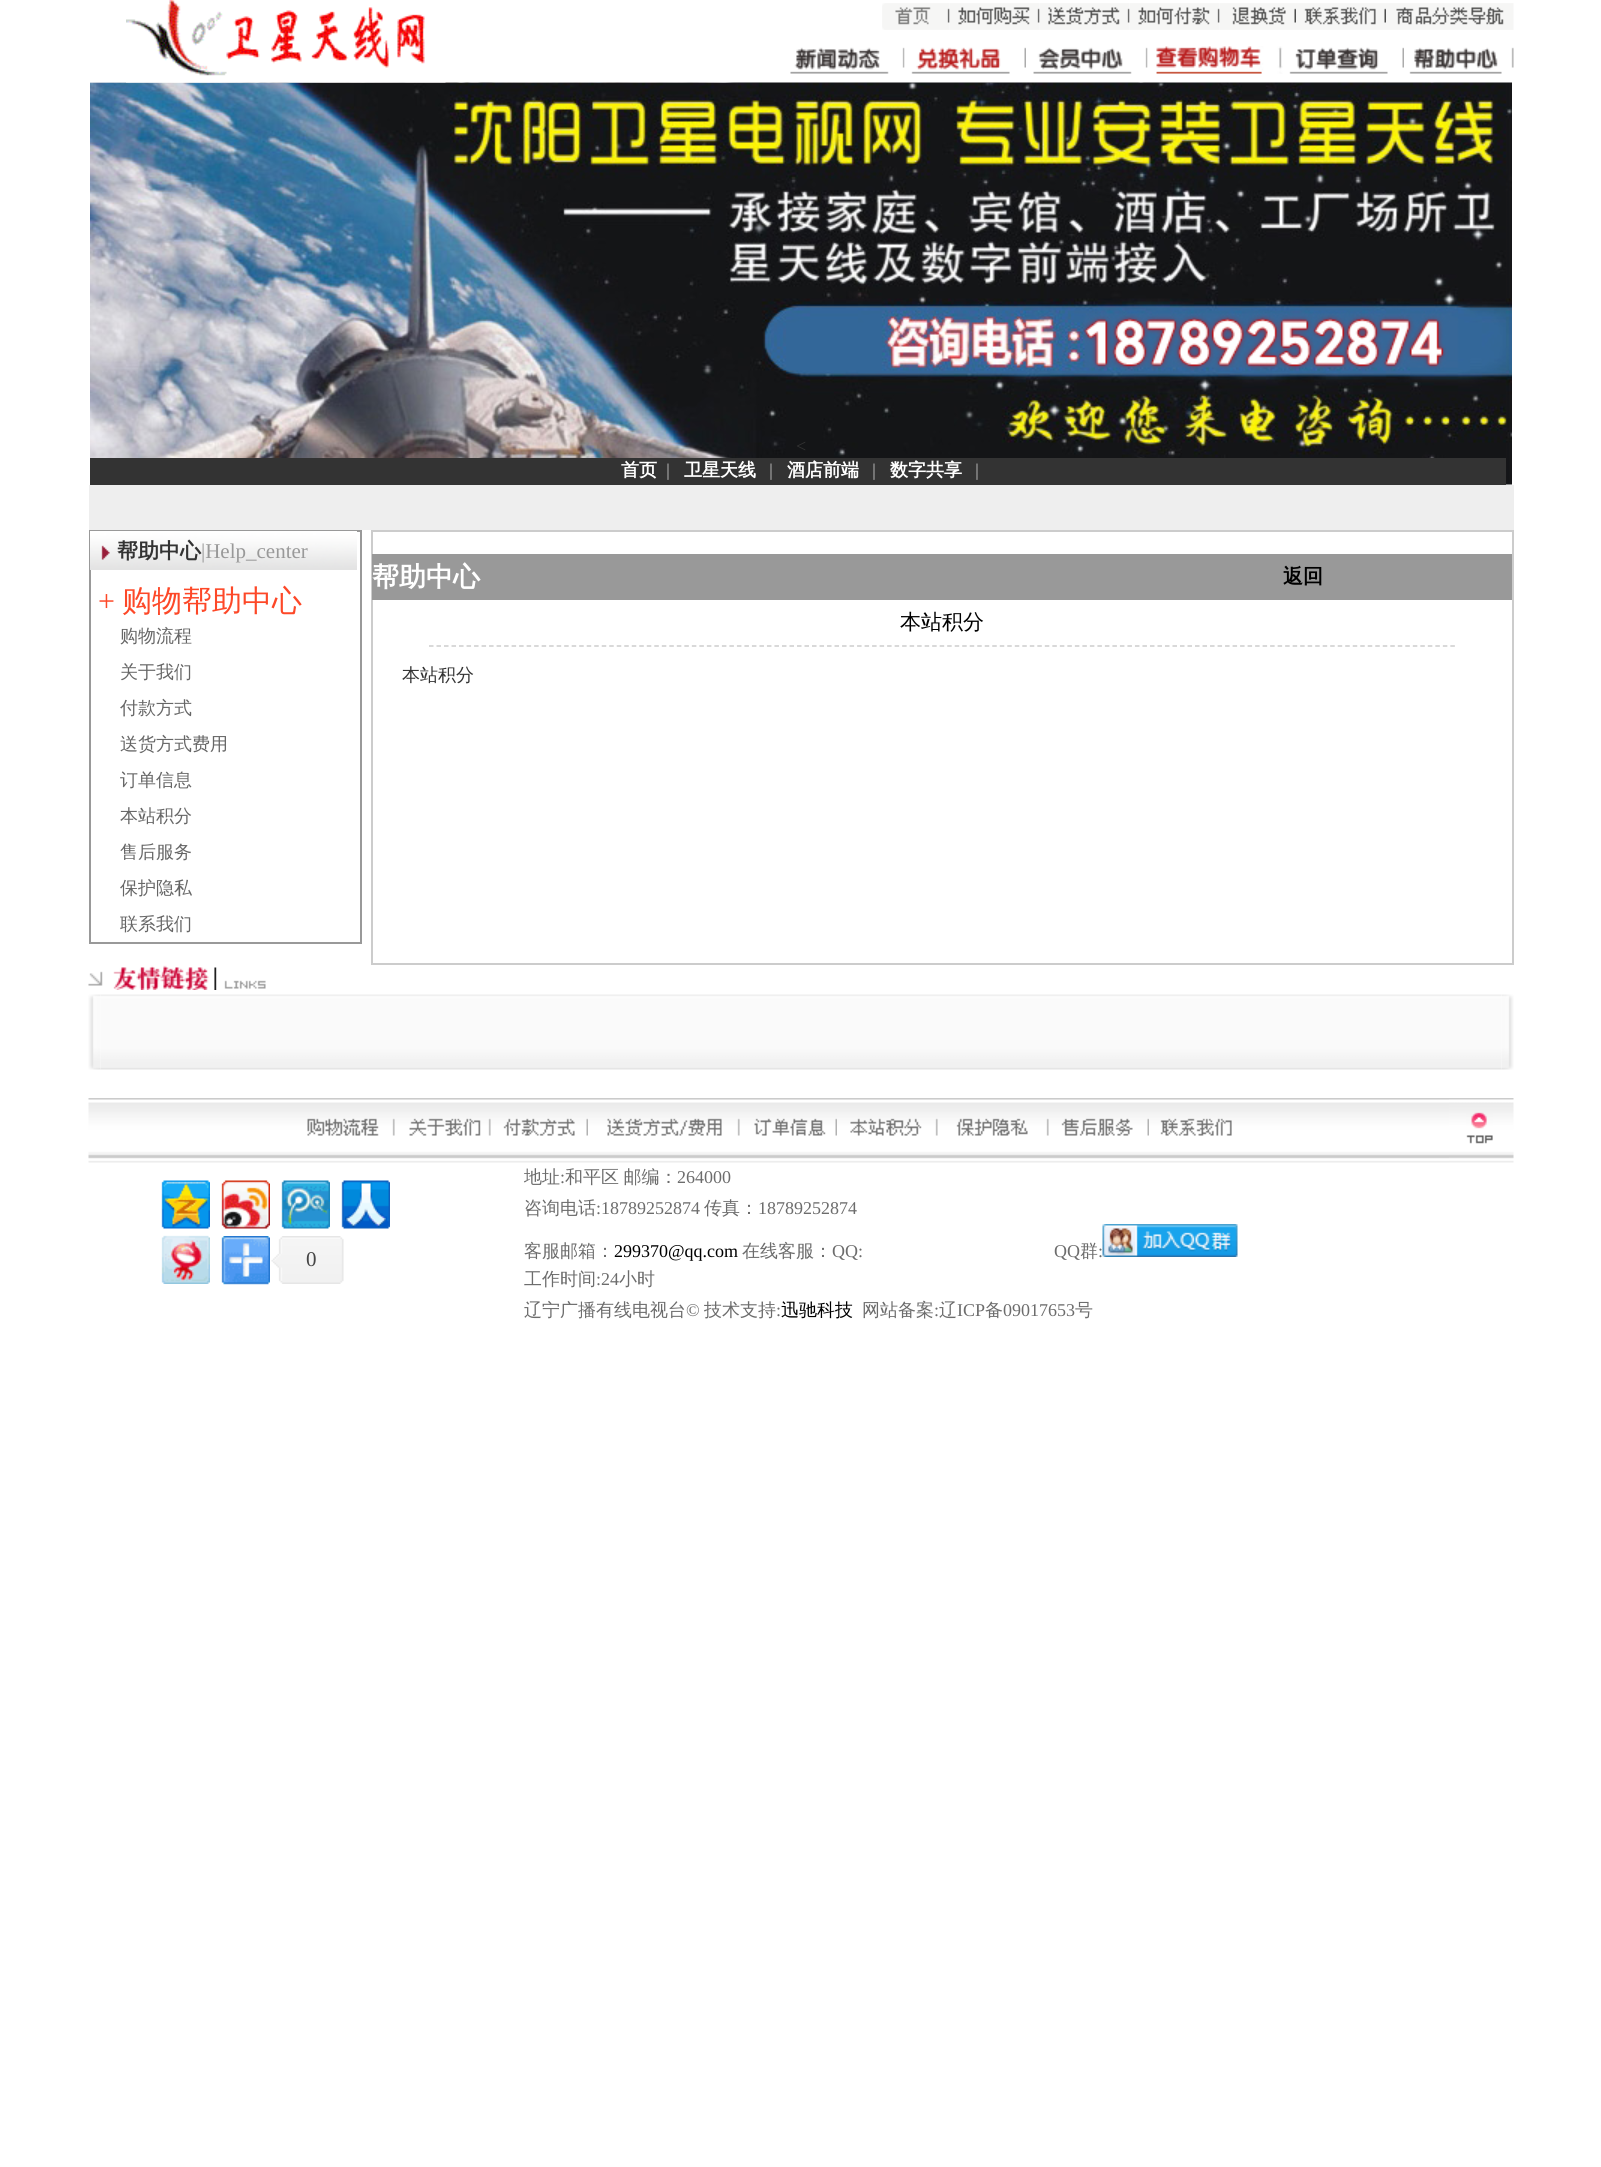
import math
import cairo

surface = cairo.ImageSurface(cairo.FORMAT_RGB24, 1601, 2167)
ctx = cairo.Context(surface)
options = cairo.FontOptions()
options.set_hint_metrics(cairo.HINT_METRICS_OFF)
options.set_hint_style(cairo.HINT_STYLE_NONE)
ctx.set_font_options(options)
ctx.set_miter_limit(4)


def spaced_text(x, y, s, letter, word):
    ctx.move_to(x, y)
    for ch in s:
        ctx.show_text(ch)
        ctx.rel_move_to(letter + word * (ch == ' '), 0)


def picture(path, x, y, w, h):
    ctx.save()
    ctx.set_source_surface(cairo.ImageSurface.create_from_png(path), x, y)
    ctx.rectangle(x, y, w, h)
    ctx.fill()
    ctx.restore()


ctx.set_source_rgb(1, 1, 1)
ctx.paint()
picture("img15.png", 90, 82, 1422, 403)
picture("img1.png", 126, 0, 320, 83)
picture("img2.png", 882, 3, 68, 27)
picture("img3.png", 949, 3, 91, 27)
picture("img4.png", 1039, 3, 91, 27)
picture("img5.png", 1129, 3, 91, 27)
picture("img6.png", 1219, 3, 77, 27)
picture("img7.png", 1296, 3, 90, 27)
picture("img8.png", 1386, 3, 128, 27)
picture("img9.png", 790, 47, 115, 27)
picture("img10.png", 904, 47, 122, 27)
picture("img11.png", 1033, 47, 115, 27)
picture("img12.png", 1147, 46, 136, 28)
picture("img13.png", 1289, 47, 115, 27)
picture("img14.png", 1409, 47, 105, 27)
ctx.select_font_face("Liberation Serif")
ctx.set_font_size(18)
ctx.set_source_rgb(0.2, 0.2, 0.2)
ctx.move_to(796, 452)
ctx.show_text("<")
ctx.rectangle(90, 458, 1416, 27)
ctx.fill()
ctx.select_font_face("WenQuanYi Zen Hei", cairo.FONT_SLANT_NORMAL, cairo.FONT_WEIGHT_BOLD)
ctx.set_source_rgb(1, 1, 1)
ctx.move_to(621, 476)
ctx.show_text("首页")
ctx.select_font_face("Liberation Serif", cairo.FONT_SLANT_NORMAL, cairo.FONT_WEIGHT_BOLD)
ctx.set_source_rgb(0.6, 0.6, 0.6)
ctx.move_to(666, 476)
ctx.show_text("|")
ctx.select_font_face("WenQuanYi Zen Hei", cairo.FONT_SLANT_NORMAL, cairo.FONT_WEIGHT_BOLD)
ctx.set_source_rgb(1, 1, 1)
ctx.move_to(684, 476)
ctx.show_text("卫星天线")
ctx.select_font_face("Liberation Serif", cairo.FONT_SLANT_NORMAL, cairo.FONT_WEIGHT_BOLD)
ctx.set_source_rgb(0.6, 0.6, 0.6)
ctx.move_to(769, 476)
ctx.show_text("|")
ctx.select_font_face("WenQuanYi Zen Hei", cairo.FONT_SLANT_NORMAL, cairo.FONT_WEIGHT_BOLD)
ctx.set_source_rgb(1, 1, 1)
ctx.move_to(787, 476)
ctx.show_text("酒店前端")
ctx.select_font_face("Liberation Serif", cairo.FONT_SLANT_NORMAL, cairo.FONT_WEIGHT_BOLD)
ctx.set_source_rgb(0.6, 0.6, 0.6)
ctx.move_to(872, 476)
ctx.show_text("|")
ctx.select_font_face("WenQuanYi Zen Hei", cairo.FONT_SLANT_NORMAL, cairo.FONT_WEIGHT_BOLD)
ctx.set_source_rgb(1, 1, 1)
ctx.move_to(890, 476)
ctx.show_text("数字共享")
ctx.select_font_face("Liberation Serif", cairo.FONT_SLANT_NORMAL, cairo.FONT_WEIGHT_BOLD)
ctx.set_source_rgb(0.6, 0.6, 0.6)
ctx.move_to(975, 476)
ctx.show_text("|")
ctx.set_source_rgb(0.933, 0.933, 0.933)
ctx.rectangle(89, 485, 1425, 45)
ctx.fill()
ctx.rectangle(90, 531, 271, 412)
ctx.set_source_rgb(0.6, 0.6, 0.6)
ctx.stroke()
picture("img16.png", 90, 531, 267, 39)
ctx.select_font_face("WenQuanYi Zen Hei", cairo.FONT_SLANT_NORMAL, cairo.FONT_WEIGHT_BOLD)
ctx.set_font_size(21)
ctx.set_source_rgb(0.2, 0.2, 0.2)
ctx.move_to(117, 558)
ctx.show_text("帮助中心")
ctx.select_font_face("Liberation Serif")
ctx.set_source_rgb(0.6, 0.6, 0.6)
ctx.move_to(201, 558)
ctx.show_text("|Help_center")
ctx.set_font_size(30)
ctx.set_source_rgb(0.992, 0.282, 0.157)
ctx.move_to(98, 611)
ctx.show_text("+")
ctx.select_font_face("WenQuanYi Zen Hei Medium")
ctx.move_to(122, 611)
ctx.show_text("购物帮助中心")
ctx.set_font_size(18)
ctx.set_source_rgb(0.4, 0.4, 0.4)
ctx.move_to(120, 642)
ctx.show_text("购物流程")
ctx.move_to(120, 678)
ctx.show_text("关于我们")
ctx.move_to(120, 714)
ctx.show_text("付款方式")
ctx.move_to(120, 750)
ctx.show_text("送货方式费用")
ctx.move_to(120, 786)
ctx.show_text("订单信息")
ctx.move_to(120, 822)
ctx.show_text("本站积分")
ctx.move_to(120, 858)
ctx.show_text("售后服务")
ctx.move_to(120, 894)
ctx.show_text("保护隐私")
ctx.move_to(120, 930)
ctx.show_text("联系我们")
ctx.rectangle(372, 531, 1141, 433)
ctx.set_source_rgb(0.8, 0.8, 0.8)
ctx.stroke()
ctx.set_source_rgb(0.6, 0.6, 0.6)
ctx.rectangle(372, 554, 1140, 46)
ctx.fill()
ctx.select_font_face("WenQuanYi Zen Hei", cairo.FONT_SLANT_NORMAL, cairo.FONT_WEIGHT_BOLD)
ctx.set_font_size(27)
ctx.set_source_rgb(1, 1, 1)
ctx.move_to(372, 586)
ctx.show_text("帮助中心")
ctx.set_font_size(20)
ctx.set_source_rgb(0, 0, 0)
ctx.move_to(1283, 583)
ctx.show_text("返回")
ctx.new_path()
ctx.move_to(429, 646)
ctx.line_to(1455, 646)
ctx.set_source_rgb(0.8, 0.8, 0.8)
ctx.set_line_width(1.5)
ctx.set_dash([4.5, 3.01])
ctx.stroke()
ctx.select_font_face("WenQuanYi Zen Hei Medium")
ctx.set_font_size(21)
ctx.set_source_rgb(0, 0, 0)
ctx.move_to(900, 629)
ctx.show_text("本站积分")
ctx.set_font_size(18)
ctx.set_source_rgb(0.2, 0.2, 0.2)
ctx.move_to(402, 681)
ctx.show_text("本站积分")
picture("img17.png", 88, 965, 178, 25)
picture("img19.png", 100, 994, 1402, 76)
picture("img18.png", 88, 994, 13, 76)
picture("img20.png", 1501, 994, 13, 76)
picture("img21.png", 88, 1098, 1361, 65)
picture("img22.png", 307, 1118, 88, 18)
picture("img23.png", 409, 1118, 82, 18)
picture("img24.png", 503, 1118, 85, 18)
picture("img25.png", 607, 1118, 133, 18)
picture("img26.png", 754, 1118, 83, 18)
picture("img27.png", 850, 1118, 88, 18)
picture("img28.png", 956, 1118, 93, 18)
picture("img29.png", 1061, 1118, 88, 18)
picture("img30.png", 1160, 1118, 72, 18)
picture("img31.png", 1449, 1098, 65, 65)
picture("img32.png", 1466, 1112, 27, 32)
picture("img33.png", 161, 1180, 49, 49)
picture("img34.png", 221, 1180, 49, 49)
picture("img35.png", 281, 1180, 49, 49)
picture("img36.png", 341, 1180, 49, 49)
picture("img37.png", 161, 1235, 49, 49)
picture("img38.png", 221, 1236, 49, 49)
picture("img39.png", 271, 1236, 73, 48)
ctx.select_font_face("Liberation Serif")
ctx.set_font_size(21)
ctx.set_source_rgb(0.271, 0.271, 0.271)
ctx.move_to(306, 1266)
ctx.show_text("0")
ctx.select_font_face("WenQuanYi Zen Hei Medium")
ctx.set_font_size(18)
ctx.set_source_rgb(0.424, 0.424, 0.424)
ctx.move_to(524, 1183)
ctx.show_text("地址")
ctx.select_font_face("Liberation Serif")
ctx.move_to(560, 1183)
ctx.show_text(":")
ctx.select_font_face("WenQuanYi Zen Hei Medium")
spaced_text(565, 1183, "和平区 邮编：", 0, -1)
ctx.select_font_face("Liberation Serif")
ctx.move_to(677, 1183)
ctx.show_text("264000")
ctx.select_font_face("WenQuanYi Zen Hei Medium")
ctx.move_to(524, 1214)
ctx.show_text("咨询电话")
ctx.select_font_face("Liberation Serif")
ctx.move_to(596, 1214)
ctx.show_text(":18789252874")
ctx.select_font_face("WenQuanYi Zen Hei Medium")
ctx.move_to(704, 1214)
ctx.show_text("传真：")
ctx.select_font_face("Liberation Serif")
ctx.move_to(758, 1214)
ctx.show_text("18789252874")
ctx.select_font_face("WenQuanYi Zen Hei Medium")
ctx.move_to(524, 1257)
ctx.show_text("客服邮箱：")
ctx.select_font_face("Liberation Serif")
ctx.set_source_rgb(0, 0, 0)
ctx.move_to(614, 1257)
ctx.show_text("299370@qq.com")
ctx.select_font_face("WenQuanYi Zen Hei Medium")
ctx.set_source_rgb(0.424, 0.424, 0.424)
ctx.move_to(742, 1257)
ctx.show_text("在线客服：")
ctx.select_font_face("Liberation Serif")
ctx.move_to(832, 1257)
ctx.show_text("QQ:")
ctx.move_to(1054, 1257)
ctx.show_text("QQ")
ctx.select_font_face("WenQuanYi Zen Hei Medium")
ctx.move_to(1080, 1257)
ctx.show_text("群")
ctx.select_font_face("Liberation Serif")
ctx.move_to(1098, 1257)
ctx.show_text(":")
picture("img40.png", 1102, 1224, 136, 33)
ctx.select_font_face("WenQuanYi Zen Hei Medium")
ctx.move_to(524, 1285)
ctx.show_text("工作时间")
ctx.select_font_face("Liberation Serif")
ctx.move_to(596, 1285)
ctx.show_text(":24")
ctx.select_font_face("WenQuanYi Zen Hei Medium")
ctx.move_to(619, 1285)
ctx.show_text("小时")
ctx.move_to(524, 1316)
ctx.show_text("辽宁广播有线电视台")
ctx.select_font_face("Liberation Serif")
ctx.move_to(686, 1316)
ctx.show_text("©")
ctx.select_font_face("WenQuanYi Zen Hei Medium")
ctx.move_to(704, 1316)
ctx.show_text("技术支持")
ctx.select_font_face("Liberation Serif")
ctx.move_to(776, 1316)
ctx.show_text(":")
ctx.select_font_face("WenQuanYi Zen Hei Medium")
ctx.set_source_rgb(0, 0, 0)
ctx.move_to(781, 1316)
ctx.show_text("迅驰科技")
ctx.set_source_rgb(0.424, 0.424, 0.424)
ctx.move_to(862, 1316)
ctx.show_text("网站备案")
ctx.select_font_face("Liberation Serif")
ctx.move_to(934, 1316)
ctx.show_text(":")
ctx.select_font_face("WenQuanYi Zen Hei Medium")
ctx.move_to(939, 1316)
ctx.show_text("辽")
ctx.select_font_face("Liberation Serif")
ctx.move_to(957, 1316)
ctx.show_text("ICP")
ctx.select_font_face("WenQuanYi Zen Hei Medium")
ctx.move_to(985, 1316)
ctx.show_text("备")
ctx.select_font_face("Liberation Serif")
ctx.move_to(1003, 1316)
ctx.show_text("09017653")
ctx.select_font_face("WenQuanYi Zen Hei Medium")
ctx.move_to(1075, 1316)
ctx.show_text("号")
surface.write_to_png("page.png")
